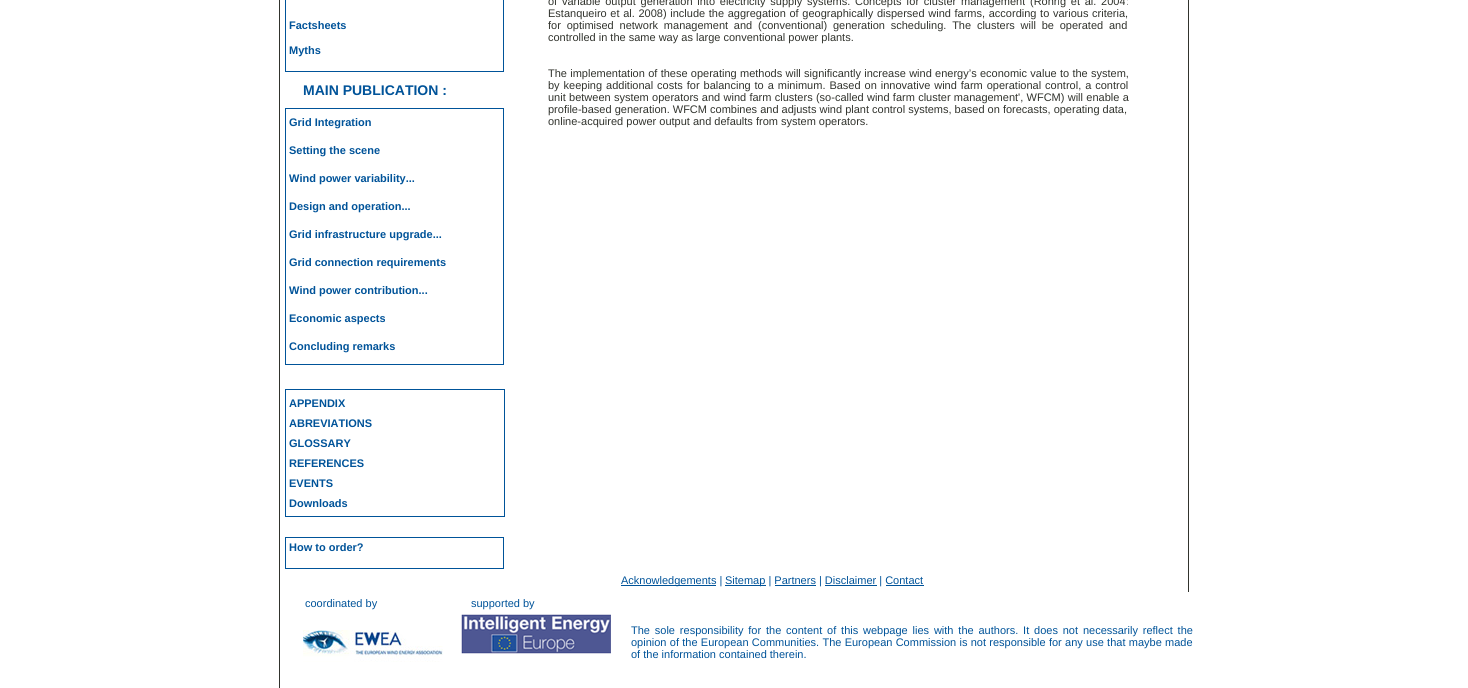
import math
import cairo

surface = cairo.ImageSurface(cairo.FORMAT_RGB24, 1468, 688)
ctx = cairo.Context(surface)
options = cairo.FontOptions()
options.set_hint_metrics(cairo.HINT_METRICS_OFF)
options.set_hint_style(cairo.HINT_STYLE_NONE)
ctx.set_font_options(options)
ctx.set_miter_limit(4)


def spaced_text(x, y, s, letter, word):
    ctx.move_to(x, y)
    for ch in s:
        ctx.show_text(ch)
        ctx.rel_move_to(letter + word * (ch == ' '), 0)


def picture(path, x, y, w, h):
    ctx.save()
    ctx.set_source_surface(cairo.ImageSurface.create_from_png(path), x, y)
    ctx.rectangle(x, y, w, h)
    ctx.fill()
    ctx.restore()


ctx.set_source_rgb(1, 1, 1)
ctx.paint()
ctx.rectangle(279.5, -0.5, 909, 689)
ctx.set_source_rgb(0.192, 0.2, 0.176)
ctx.set_line_width(1)
ctx.stroke()
ctx.rectangle(285.5, -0.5, 218, 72)
ctx.set_source_rgb(0, 0.325, 0.6)
ctx.stroke()
ctx.select_font_face("Liberation Sans", cairo.FONT_SLANT_NORMAL, cairo.FONT_WEIGHT_BOLD)
ctx.set_font_size(11)
ctx.move_to(289, 29)
ctx.show_text("Factsheets")
ctx.move_to(289, 54)
ctx.show_text("Myths")
ctx.set_font_size(14)
ctx.move_to(303, 95)
ctx.show_text("MAIN PUBLICATION :")
ctx.rectangle(285.5, 108.5, 218, 256)
ctx.stroke()
ctx.set_font_size(11)
ctx.move_to(289, 126)
ctx.show_text("Grid Integration")
ctx.move_to(289, 154)
ctx.show_text("Setting the scene")
ctx.move_to(289, 182)
ctx.show_text("Wind power variability...")
ctx.move_to(289, 210)
ctx.show_text("Design and operation...")
ctx.move_to(289, 238)
ctx.show_text("Grid infrastructure upgrade...")
ctx.move_to(289, 266)
ctx.show_text("Grid connection requirements")
ctx.move_to(289, 294)
ctx.show_text("Wind power contribution...")
ctx.move_to(289, 322)
ctx.show_text("Economic aspects")
ctx.move_to(289, 350)
ctx.show_text("Concluding remarks")
ctx.rectangle(285.5, 389.5, 219, 127)
ctx.stroke()
ctx.move_to(289, 407)
ctx.show_text("APPENDIX")
ctx.move_to(289, 427)
ctx.show_text("ABREVIATIONS")
ctx.move_to(289, 447)
ctx.show_text("GLOSSARY")
ctx.move_to(289, 467)
ctx.show_text("REFERENCES")
ctx.move_to(289, 487)
ctx.show_text("EVENTS")
ctx.move_to(289, 507)
ctx.show_text("Downloads")
ctx.rectangle(285.5, 537.5, 218, 31)
ctx.stroke()
ctx.move_to(289, 551)
ctx.show_text("How to order?")
ctx.select_font_face("Liberation Sans")
ctx.set_source_rgb(0.192, 0.2, 0.176)
spaced_text(548, 5, "of variable output generation into electricity supply systems. Concepts for cluster management (Rohrig et al. 2004:", 0, 1.7)
spaced_text(548, 17, "Estanqueiro et al. 2008) include the aggregation of geographically dispersed wind farms, according to various criteria,", 0, 0.6)
spaced_text(548, 29, "for optimised network management and (conventional) generation scheduling. The clusters will be operated and", 0, 2.75)
ctx.move_to(548, 41)
ctx.show_text("controlled in the same way as large conventional power plants.")
spaced_text(548, 77, "The implementation of these operating methods will significantly increase wind energy’s economic value to the system,", 0, 0.25)
spaced_text(548, 89, "by keeping additional costs for balancing to a minimum. Based on innovative wind farm operational control, a control", 0, 0.9)
spaced_text(548, 101, "unit between system operators and wind farm clusters (so-called wind farm cluster management', WFCM) will enable a", 0, 0.25)
ctx.move_to(548, 113)
ctx.show_text("profile-based generation. WFCM combines and adjusts wind plant control systems, based on forecasts, operating data,")
ctx.move_to(548, 125)
ctx.show_text("online-acquired power output and defaults from system operators.")
ctx.set_source_rgb(0, 0.325, 0.6)
ctx.rectangle(621, 585, 95, 1)
ctx.fill()
ctx.move_to(621, 584)
ctx.show_text("Acknowledgements |")
ctx.rectangle(725, 585, 41, 1)
ctx.fill()
ctx.move_to(725, 584)
ctx.show_text("Sitemap | Partners | Disclaimer | Contact")
ctx.rectangle(775, 585, 41, 1)
ctx.fill()
ctx.rectangle(825, 585, 52, 1)
ctx.fill()
ctx.rectangle(886, 585, 38, 1)
ctx.fill()
ctx.move_to(305, 607)
ctx.show_text("coordinated by")
picture("img1.png", 303, 630, 140, 32)
ctx.move_to(471, 607)
ctx.show_text("supported by")
picture("img2.png", 461, 614, 150, 40)
ctx.set_source_rgb(1, 1, 1)
ctx.rectangle(1188, 592, 1, 96)
ctx.fill()
ctx.set_source_rgb(0, 0.325, 0.6)
spaced_text(631, 634, "The sole responsibility for the content of this webpage lies with the authors. It does not necessarily reflect the", 0, 1.8)
spaced_text(631, 646, "opinion of the European Communities. The European Commission is not responsible for any use that maybe made", 0, 0.25)
ctx.move_to(631, 658)
ctx.show_text("of the information contained therein.")
surface.write_to_png("page.png")
